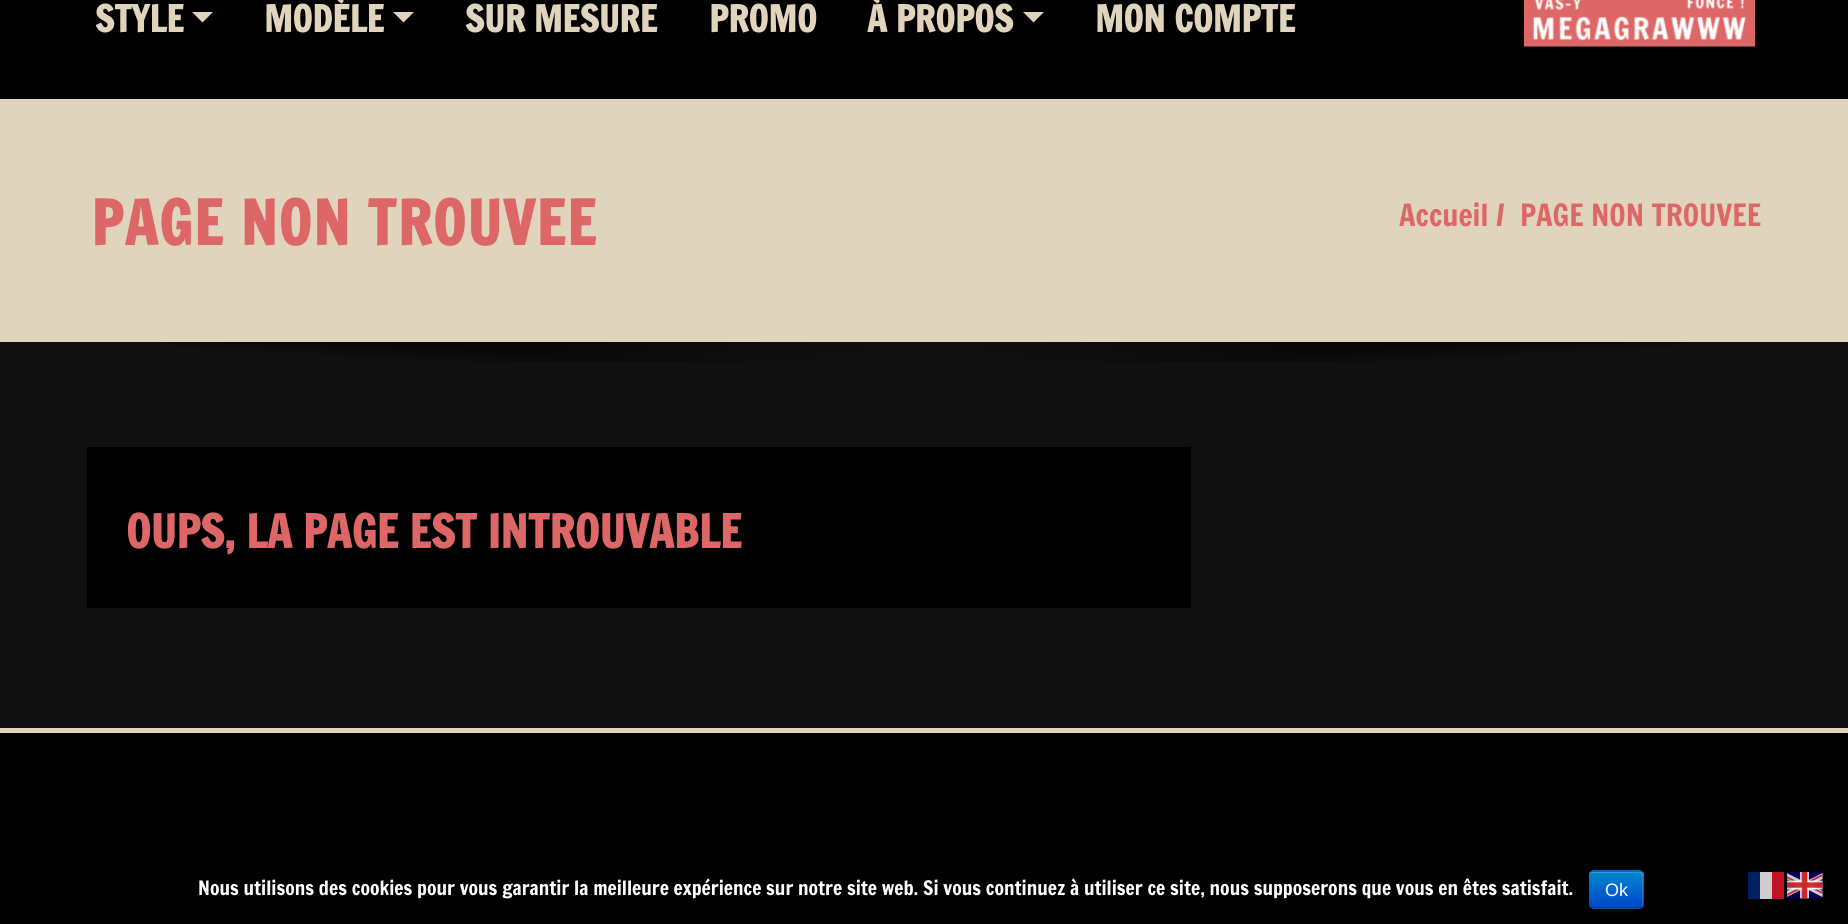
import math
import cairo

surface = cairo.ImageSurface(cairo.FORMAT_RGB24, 1848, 924)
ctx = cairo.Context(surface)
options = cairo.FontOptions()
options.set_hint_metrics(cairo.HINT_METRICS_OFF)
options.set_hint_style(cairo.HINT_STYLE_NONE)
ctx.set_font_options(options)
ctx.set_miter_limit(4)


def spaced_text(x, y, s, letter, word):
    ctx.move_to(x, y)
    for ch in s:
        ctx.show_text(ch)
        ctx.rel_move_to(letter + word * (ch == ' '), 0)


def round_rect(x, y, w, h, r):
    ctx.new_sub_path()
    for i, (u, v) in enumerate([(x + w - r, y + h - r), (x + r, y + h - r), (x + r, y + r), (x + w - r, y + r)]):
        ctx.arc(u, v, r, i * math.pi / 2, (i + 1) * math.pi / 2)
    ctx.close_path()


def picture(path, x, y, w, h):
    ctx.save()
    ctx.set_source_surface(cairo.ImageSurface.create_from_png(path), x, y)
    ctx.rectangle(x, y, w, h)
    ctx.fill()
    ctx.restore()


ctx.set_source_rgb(0, 0, 0)
ctx.paint()
ctx.select_font_face("Francois One", cairo.FONT_SLANT_NORMAL, cairo.FONT_WEIGHT_BOLD)
ctx.set_font_size(36)
ctx.set_source_rgb(0.878, 0.831, 0.737)
ctx.move_to(95, 32)
ctx.show_text("STYLE")
ctx.new_path()
ctx.move_to(192, 12)
ctx.line_to(213, 12)
ctx.line_to(202.5, 22.5)
ctx.close_path()
ctx.fill()
ctx.move_to(264, 32)
ctx.show_text("MODÈLE")
ctx.new_path()
ctx.move_to(393, 12)
ctx.line_to(414, 12)
ctx.line_to(403.5, 22.5)
ctx.close_path()
ctx.fill()
ctx.move_to(465, 32)
ctx.show_text("SUR MESURE")
ctx.move_to(709, 32)
ctx.show_text("PROMO")
ctx.move_to(867, 32)
ctx.show_text("À PROPOS")
ctx.new_path()
ctx.move_to(1023, 12)
ctx.line_to(1044, 12)
ctx.line_to(1033.5, 22.5)
ctx.close_path()
ctx.fill()
ctx.move_to(1095, 32)
ctx.show_text("MON COMPTE")
picture("img1.png", 1524, 0, 231, 47)
ctx.rectangle(0, 99, 1848, 243)
ctx.fill()
ctx.set_font_size(60)
ctx.set_source_rgb(0.867, 0.4, 0.4)
spaced_text(91, 245, "PAGE NON TROUVEE", 1.5, 0)
ctx.select_font_face("Francois One")
ctx.set_font_size(30)
ctx.move_to(1399, 226)
ctx.show_text("Accueil /")
ctx.move_to(1520, 226)
ctx.show_text("PAGE NON TROUVEE")
ctx.set_source_rgb(0.063, 0.063, 0.063)
ctx.rectangle(0, 342, 1848, 386)
ctx.fill()
picture("img2.png", 158, 342, 1530, 20)
ctx.set_source_rgb(0, 0, 0)
ctx.rectangle(87, 447, 1104, 161)
ctx.fill()
ctx.select_font_face("Francois One", cairo.FONT_SLANT_NORMAL, cairo.FONT_WEIGHT_BOLD)
ctx.set_font_size(45)
ctx.set_source_rgb(0.867, 0.4, 0.4)
ctx.move_to(126, 548)
ctx.show_text("OUPS, LA PAGE EST INTROUVABLE")
ctx.set_source_rgb(0.878, 0.831, 0.737)
ctx.rectangle(0, 728, 1848, 5)
ctx.fill()
ctx.select_font_face("Francois One")
ctx.set_font_size(19.5)
ctx.set_source_rgb(1, 1, 1)
ctx.move_to(198, 895)
ctx.show_text("Nous utilisons des cookies pour vous garantir la meilleure expérience sur notre site web. Si vous continuez à utiliser ce site, nous supposerons que vous en êtes satisfait.")
ctx.set_source_rgb(0, 0.427, 0.8)
round_rect(1589, 870, 55, 39, 5)
ctx.fill()
ctx.save()
round_rect(1589, 870, 55, 39, 5)
ctx.clip()
gradient = cairo.LinearGradient(1616, 872, 1616, 908)
gradient.add_color_stop_rgba(0, 0, 0.533, 0.8, 1)
gradient.add_color_stop_rgba(1, 0, 0.267, 0.8, 1)
ctx.set_source(gradient)
ctx.rectangle(1589, 872, 55, 36)
ctx.fill()
ctx.restore()
ctx.set_source_rgba(1, 1, 1, 0.2)
ctx.new_path()
ctx.move_to(1593, 873)
ctx.line_to(1624, 873)
ctx.curve_to(1644, 873, 1642, 869, 1642, 886)
ctx.line_to(1642, 907)
ctx.curve_to(1643, 907, 1643, 906, 1643, 905)
ctx.line_to(1643, 875)
ctx.curve_to(1643, 873, 1642, 872, 1640, 872)
ctx.line_to(1593, 872)
ctx.curve_to(1591, 872, 1590, 873, 1590, 875)
ctx.line_to(1590, 876)
ctx.curve_to(1590, 874, 1591, 873, 1593, 873)
ctx.close_path()
ctx.fill()
ctx.new_path()
ctx.move_to(1642, 907)
ctx.curve_to(1641.5, 908, 1640.5, 908, 1639.5, 908)
ctx.line_to(1593, 908)
ctx.curve_to(1592, 908, 1591, 908, 1590.5, 907)
ctx.set_source_rgba(0, 0, 0, 0.25)
ctx.set_line_width(1.5)
ctx.stroke()
ctx.new_path()
ctx.move_to(1590.5, 907)
ctx.curve_to(1589.5, 906.5, 1589, 905.5, 1589, 904.5)
ctx.line_to(1589, 874.5)
ctx.curve_to(1589, 873.5, 1589.5, 872.5, 1590.5, 872)
ctx.curve_to(1591, 871, 1592, 871, 1593, 871)
ctx.line_to(1639.5, 871)
ctx.curve_to(1640.5, 871, 1641.5, 871, 1642, 872)
ctx.curve_to(1643, 872.5, 1643, 873.5, 1643, 874.5)
ctx.line_to(1643, 904.5)
ctx.curve_to(1643, 905.5, 1643, 906.5, 1642, 907)
ctx.set_source_rgba(0, 0, 0, 0.1)
ctx.stroke()
ctx.select_font_face("Liberation Sans")
ctx.set_font_size(18)
ctx.set_source_rgb(1, 1, 1)
ctx.move_to(1605, 896)
ctx.show_text("Ok")
ctx.set_source_rgb(0, 0.118, 0.4)
ctx.rectangle(1748, 872, 12, 27)
ctx.fill()
ctx.set_source_rgb(0.8, 0.8, 0.8)
ctx.rectangle(1760, 872, 12, 27)
ctx.fill()
ctx.set_source_rgb(0.761, 0.075, 0.149)
ctx.rectangle(1772, 872, 12, 27)
ctx.fill()
picture("img3.png", 1787, 872, 36, 27)
surface.write_to_png("page.png")
